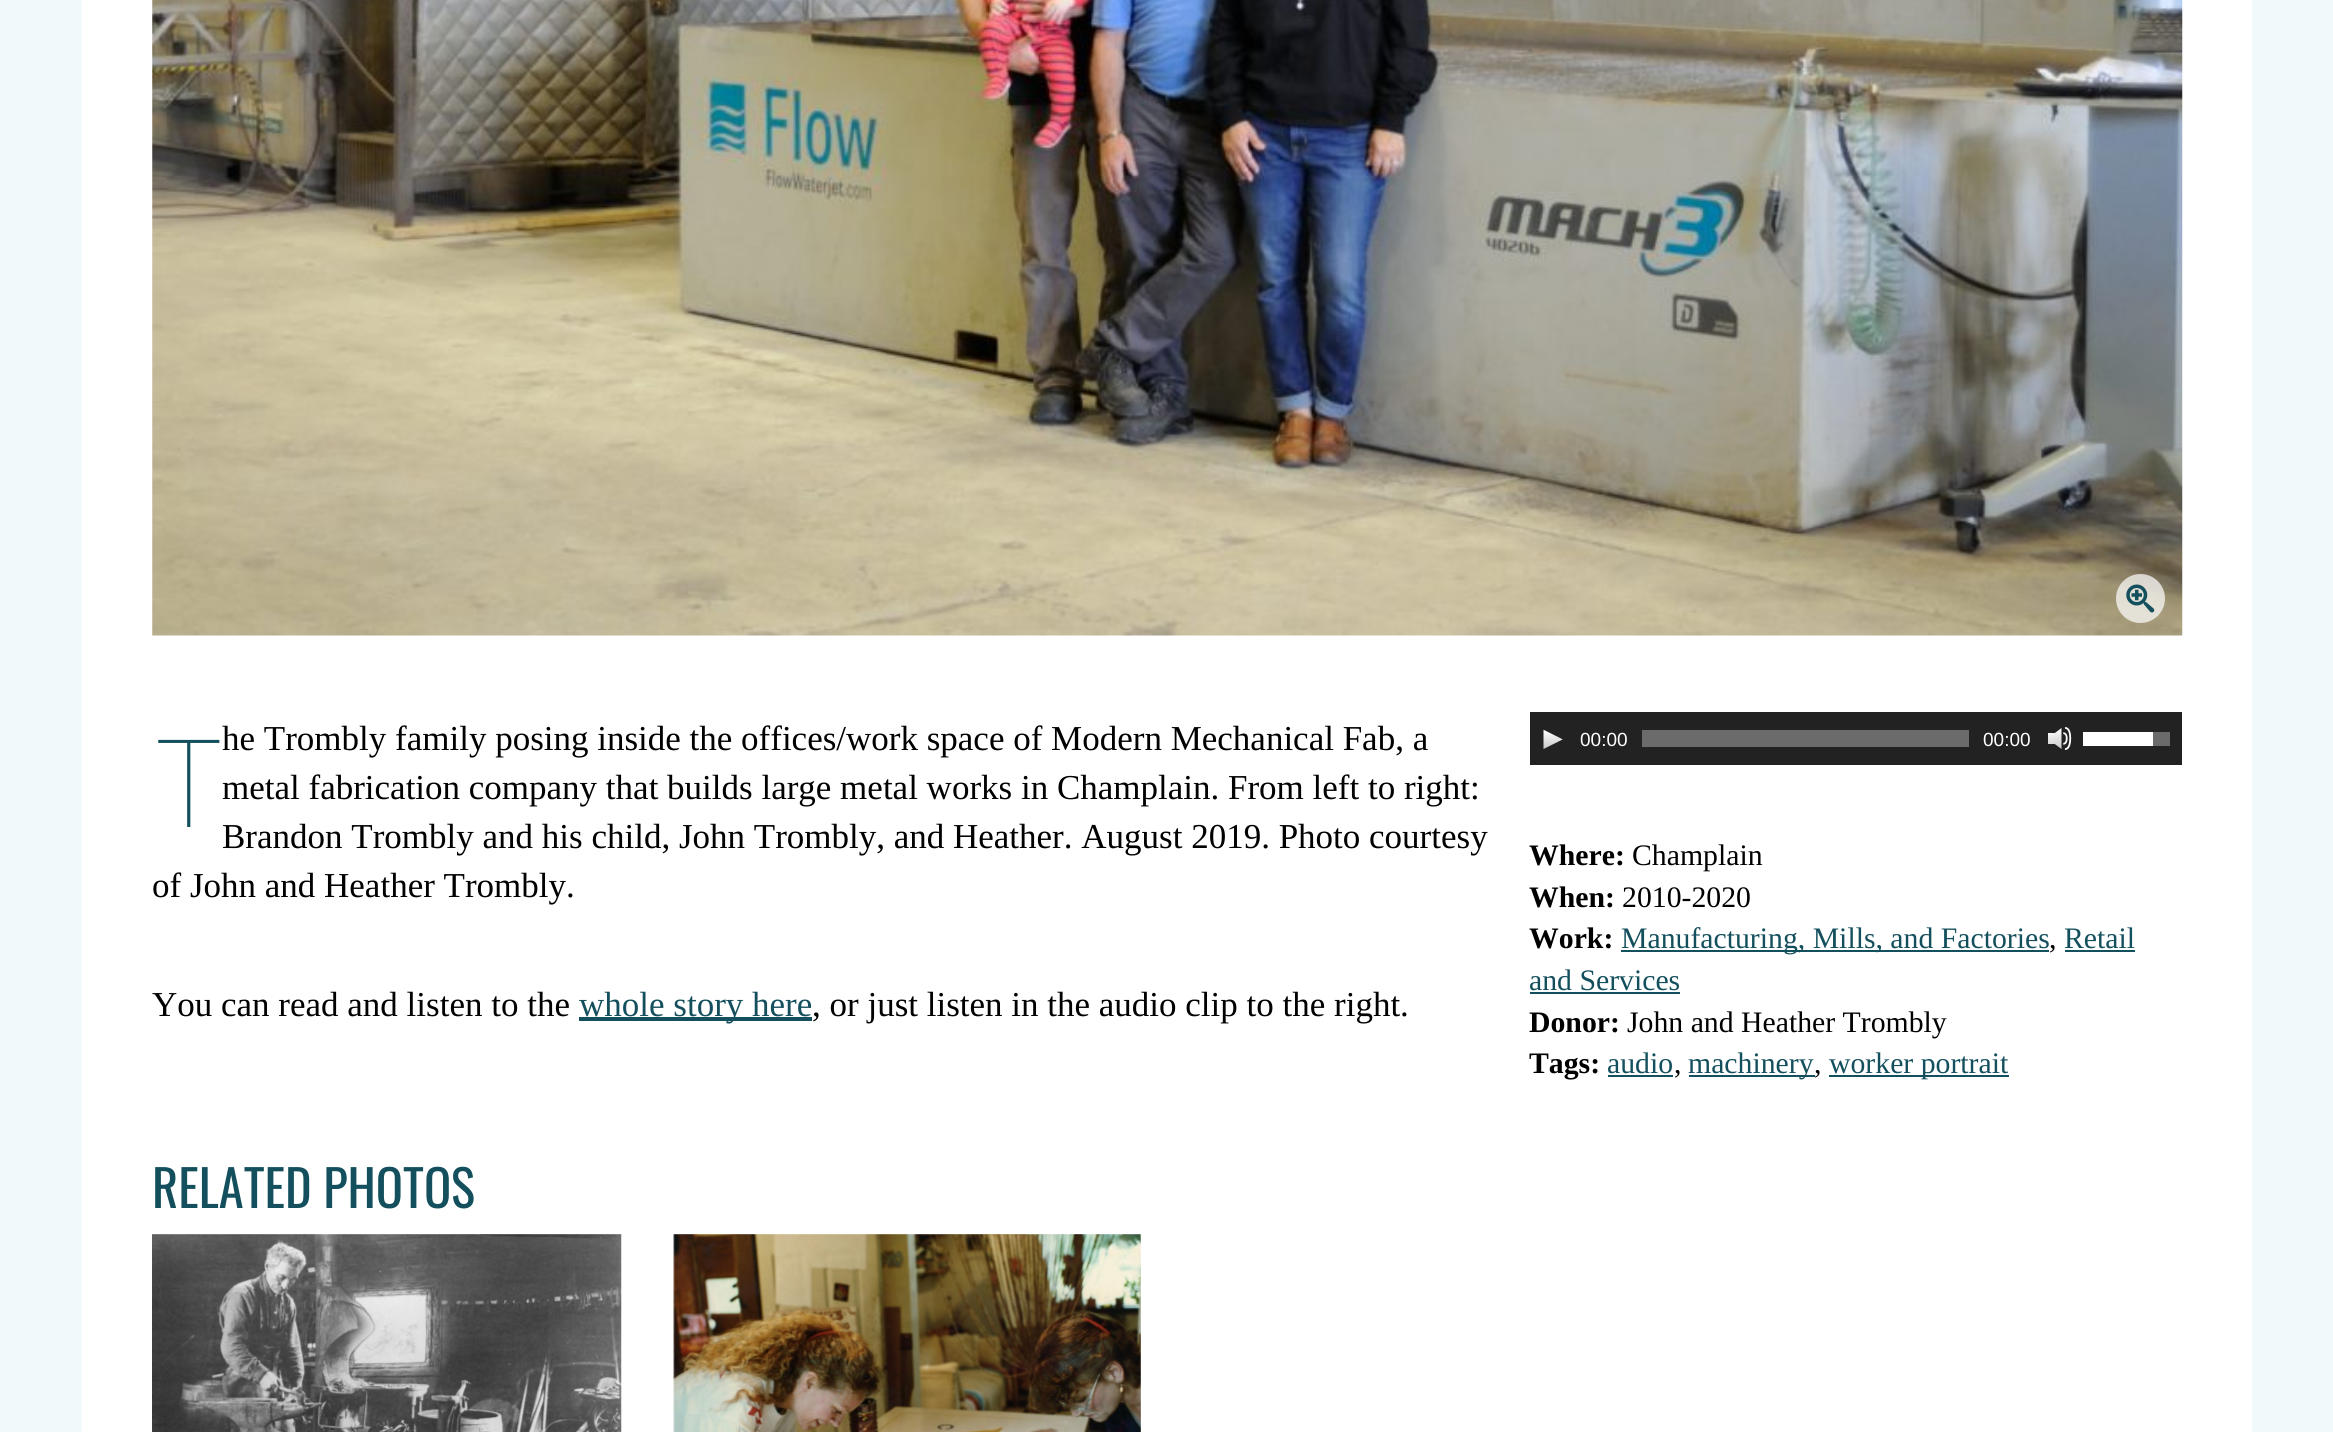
import math
import cairo

surface = cairo.ImageSurface(cairo.FORMAT_RGB24, 2333, 1432)
ctx = cairo.Context(surface)
options = cairo.FontOptions()
options.set_hint_metrics(cairo.HINT_METRICS_OFF)
options.set_hint_style(cairo.HINT_STYLE_NONE)
ctx.set_font_options(options)
ctx.set_miter_limit(4)


def picture(path, x, y, w, h):
    ctx.save()
    ctx.set_source_surface(cairo.ImageSurface.create_from_png(path), x, y)
    ctx.rectangle(x, y, w, h)
    ctx.fill()
    ctx.restore()


ctx.set_source_rgb(0.945, 0.976, 0.984)
ctx.paint()
ctx.set_source_rgb(1, 1, 1)
ctx.rectangle(82, 0, 2170, 1432)
ctx.fill()
picture("img1.png", 152, 0, 2031, 636)
ctx.set_source_rgba(1, 1, 1, 0.7)
ctx.arc(2140.5, 598.5, 24.5, 0, 2 * math.pi)
ctx.fill()
picture("img2.png", 2126, 584, 29, 29)
ctx.select_font_face("Liberation Serif")
ctx.set_font_size(35)
ctx.set_source_rgb(0, 0, 0)
ctx.move_to(222, 750)
ctx.show_text("he Trombly family posing inside the offices/work space of Modern Mechanical Fab, a")
ctx.move_to(222, 799)
ctx.show_text("metal fabrication company that builds large metal works in Champlain. From left to right:")
ctx.move_to(222, 848)
ctx.show_text("Brandon Trombly and his child, John Trombly, and Heather. August 2019. Photo courtesy")
ctx.move_to(152, 897)
ctx.show_text("of John and Heather Trombly.")
ctx.select_font_face("Noto Sans Thin")
ctx.set_font_size(122)
ctx.set_source_rgb(0.075, 0.31, 0.361)
ctx.move_to(158, 827)
ctx.show_text("T")
ctx.select_font_face("Liberation Serif")
ctx.set_font_size(35)
ctx.set_source_rgb(0, 0, 0)
ctx.move_to(152, 1016)
ctx.show_text("You can read and listen to the")
ctx.set_source_rgb(0.075, 0.31, 0.361)
ctx.rectangle(579, 1017, 233, 4)
ctx.fill()
ctx.move_to(579, 1016)
ctx.show_text("whole story here")
ctx.set_source_rgb(0, 0, 0)
ctx.move_to(812, 1016)
ctx.show_text(", or just listen in the audio clip to the right.")
ctx.set_source_rgb(0.133, 0.133, 0.133)
ctx.rectangle(1530, 712, 652, 53)
ctx.fill()
picture("img3.png", 1543, 729, 20, 20)
ctx.select_font_face("Liberation Sans")
ctx.set_font_size(19)
ctx.set_source_rgb(1, 1, 1)
ctx.move_to(1580, 746)
ctx.show_text("00:00")
ctx.set_source_rgb(0.42, 0.42, 0.42)
ctx.rectangle(1642, 730, 327, 17)
ctx.fill()
ctx.set_source_rgb(1, 1, 1)
ctx.move_to(1983, 746)
ctx.show_text("00:00")
picture("img4.png", 2048, 727, 24, 23)
ctx.rectangle(2083, 732, 70, 14)
ctx.fill()
ctx.set_source_rgb(0.42, 0.42, 0.42)
ctx.rectangle(2153, 732, 17, 14)
ctx.fill()
ctx.select_font_face("Liberation Serif", cairo.FONT_SLANT_NORMAL, cairo.FONT_WEIGHT_BOLD)
ctx.set_font_size(29.75)
ctx.set_source_rgb(0, 0, 0)
ctx.move_to(1529, 865)
ctx.show_text("Where:")
ctx.select_font_face("Liberation Serif")
ctx.move_to(1632, 865)
ctx.show_text("Champlain")
ctx.select_font_face("Liberation Serif", cairo.FONT_SLANT_NORMAL, cairo.FONT_WEIGHT_BOLD)
ctx.move_to(1529, 907)
ctx.show_text("When:")
ctx.select_font_face("Liberation Serif")
ctx.move_to(1622, 907)
ctx.show_text("2010-2020")
ctx.select_font_face("Liberation Serif", cairo.FONT_SLANT_NORMAL, cairo.FONT_WEIGHT_BOLD)
ctx.move_to(1529, 948)
ctx.show_text("Work:")
ctx.set_source_rgb(0.075, 0.31, 0.361)
ctx.rectangle(1621, 950, 428, 2)
ctx.fill()
ctx.select_font_face("Liberation Serif")
ctx.move_to(1621, 948)
ctx.show_text("Manufacturing, Mills, and Factories")
ctx.set_source_rgb(0, 0, 0)
ctx.move_to(2049, 948)
ctx.show_text(",")
ctx.set_source_rgb(0.075, 0.31, 0.361)
ctx.move_to(2064, 948)
ctx.show_text("Retail")
ctx.rectangle(2065, 950, 70, 2)
ctx.fill()
ctx.move_to(1529, 990)
ctx.show_text("and Services")
ctx.rectangle(1530, 992, 150, 2)
ctx.fill()
ctx.select_font_face("Liberation Serif", cairo.FONT_SLANT_NORMAL, cairo.FONT_WEIGHT_BOLD)
ctx.set_source_rgb(0, 0, 0)
ctx.move_to(1529, 1032)
ctx.show_text("Donor:")
ctx.select_font_face("Liberation Serif")
ctx.move_to(1627, 1032)
ctx.show_text("John and Heather Trombly")
ctx.select_font_face("Liberation Serif", cairo.FONT_SLANT_NORMAL, cairo.FONT_WEIGHT_BOLD)
ctx.move_to(1529, 1073)
ctx.show_text("Tags:")
ctx.select_font_face("Liberation Serif")
ctx.set_source_rgb(0.075, 0.31, 0.361)
ctx.move_to(1607, 1073)
ctx.show_text("audio")
ctx.rectangle(1608, 1075, 65, 2)
ctx.fill()
ctx.set_source_rgb(0, 0, 0)
ctx.move_to(1674, 1073)
ctx.show_text(",")
ctx.set_source_rgb(0.075, 0.31, 0.361)
ctx.rectangle(1689, 1075, 126, 2)
ctx.fill()
ctx.move_to(1688, 1073)
ctx.show_text("machinery")
ctx.set_source_rgb(0, 0, 0)
ctx.move_to(1814, 1073)
ctx.show_text(",")
ctx.set_source_rgb(0.075, 0.31, 0.361)
ctx.rectangle(1829, 1075, 180, 2)
ctx.fill()
ctx.move_to(1829, 1073)
ctx.show_text("worker portrait")
ctx.select_font_face("Oswald")
ctx.set_font_size(50.5)
ctx.move_to(152, 1208)
ctx.show_text("RELATED PHOTOS")
picture("img5.png", 152, 1234, 470, 198)
picture("img6.png", 673, 1234, 468, 198)
surface.write_to_png("page.png")
